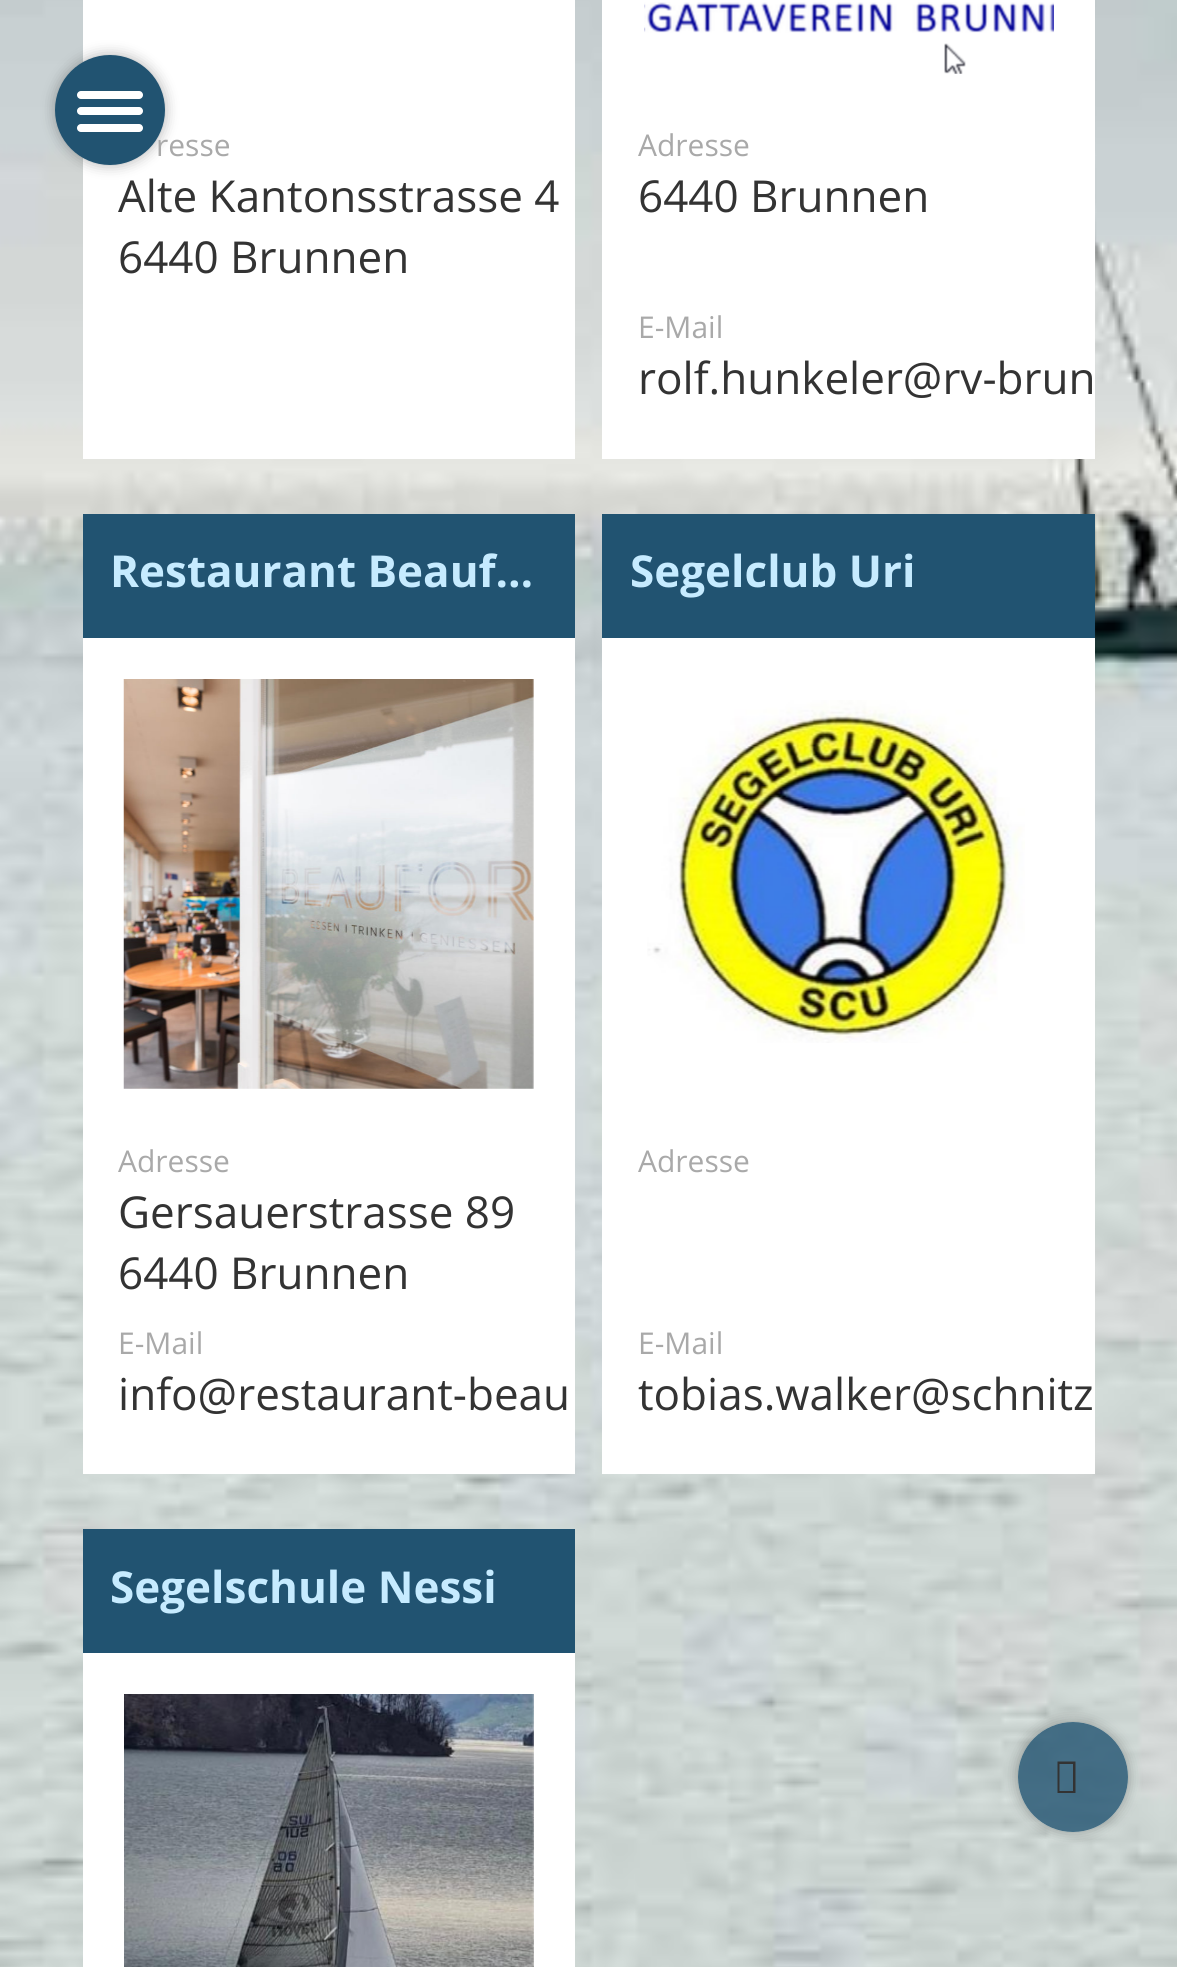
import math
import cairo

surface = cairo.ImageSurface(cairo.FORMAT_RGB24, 1180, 1967)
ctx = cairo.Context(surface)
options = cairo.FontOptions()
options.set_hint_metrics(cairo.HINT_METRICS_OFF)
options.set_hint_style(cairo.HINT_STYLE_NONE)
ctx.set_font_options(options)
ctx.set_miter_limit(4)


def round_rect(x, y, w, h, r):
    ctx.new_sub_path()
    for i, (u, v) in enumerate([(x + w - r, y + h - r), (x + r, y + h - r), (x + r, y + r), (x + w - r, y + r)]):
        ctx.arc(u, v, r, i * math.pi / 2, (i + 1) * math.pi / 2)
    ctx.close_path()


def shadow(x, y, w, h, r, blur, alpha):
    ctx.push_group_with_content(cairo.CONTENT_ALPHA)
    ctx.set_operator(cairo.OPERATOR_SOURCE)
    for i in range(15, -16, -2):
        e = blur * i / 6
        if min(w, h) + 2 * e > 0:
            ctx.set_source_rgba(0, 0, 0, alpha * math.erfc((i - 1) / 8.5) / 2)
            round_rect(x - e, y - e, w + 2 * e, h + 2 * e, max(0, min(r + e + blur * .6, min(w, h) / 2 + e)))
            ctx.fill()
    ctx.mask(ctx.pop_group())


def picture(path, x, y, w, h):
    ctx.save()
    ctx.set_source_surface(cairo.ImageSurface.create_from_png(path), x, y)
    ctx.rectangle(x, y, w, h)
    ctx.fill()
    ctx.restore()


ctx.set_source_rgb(1, 1, 1)
ctx.paint()
picture("img1.png", 0, 0, 1177, 1967)
ctx.set_source_rgb(1, 1, 1)
ctx.rectangle(83, 0, 492, 459)
ctx.fill()
ctx.set_source_rgb(0, 0, 0)
shadow(55, 55, 110, 110, 55, 7, 0.3)
ctx.select_font_face("Open Sans")
ctx.set_font_size(30)
ctx.set_source_rgb(0.663, 0.663, 0.663)
ctx.move_to(156, 156)
ctx.show_text("resse")
ctx.set_source_rgb(0.129, 0.325, 0.443)
ctx.new_path()
ctx.arc(110, 110, 55, 0, 2 * math.pi)
ctx.fill()
ctx.set_source_rgb(1, 1, 1)
round_rect(77, 91, 66, 8, 4)
ctx.fill()
round_rect(77, 107, 66, 8, 4)
ctx.fill()
round_rect(77, 124, 66, 8, 4)
ctx.fill()
ctx.set_font_size(44)
ctx.set_source_rgb(0.2, 0.2, 0.2)
ctx.move_to(118, 212)
ctx.show_text("Alte Kantonsstrasse 4")
ctx.move_to(118, 273)
ctx.show_text("6440 Brunnen")
ctx.set_source_rgb(1, 1, 1)
ctx.rectangle(602, 0, 493, 459)
ctx.fill()
picture("img2.png", 644, 2, 410, 72)
ctx.set_font_size(30)
ctx.set_source_rgb(0.663, 0.663, 0.663)
ctx.move_to(638, 156)
ctx.show_text("Adresse")
ctx.set_font_size(44)
ctx.set_source_rgb(0.2, 0.2, 0.2)
ctx.move_to(638, 212)
ctx.show_text("6440 Brunnen")
ctx.set_font_size(30)
ctx.set_source_rgb(0.663, 0.663, 0.663)
ctx.move_to(638, 338)
ctx.show_text("E-Mail")
ctx.set_font_size(44)
ctx.set_source_rgb(0.2, 0.2, 0.2)
ctx.move_to(638, 394)
ctx.show_text("rolf.hunkeler@rv-brun")
ctx.set_source_rgb(1, 1, 1)
ctx.rectangle(83, 638, 492, 836)
ctx.fill()
ctx.set_source_rgb(0.129, 0.325, 0.443)
ctx.rectangle(83, 514, 492, 124)
ctx.fill()
ctx.select_font_face("Open Sans", cairo.FONT_SLANT_NORMAL, cairo.FONT_WEIGHT_BOLD)
ctx.set_source_rgb(0.776, 0.918, 1)
ctx.move_to(110, 587)
ctx.show_text("Restaurant Beauf…")
picture("img3.png", 123, 679, 411, 410)
ctx.select_font_face("Open Sans")
ctx.set_font_size(30)
ctx.set_source_rgb(0.663, 0.663, 0.663)
ctx.move_to(118, 1172)
ctx.show_text("Adresse")
ctx.set_font_size(44)
ctx.set_source_rgb(0.2, 0.2, 0.2)
ctx.move_to(118, 1228)
ctx.show_text("Gersauerstrasse 89")
ctx.move_to(118, 1289)
ctx.show_text("6440 Brunnen")
ctx.set_font_size(30)
ctx.set_source_rgb(0.663, 0.663, 0.663)
ctx.move_to(118, 1354)
ctx.show_text("E-Mail")
ctx.set_font_size(44)
ctx.set_source_rgb(0.2, 0.2, 0.2)
ctx.move_to(118, 1410)
ctx.show_text("info@restaurant-beau")
ctx.set_source_rgb(1, 1, 1)
ctx.rectangle(602, 638, 493, 836)
ctx.fill()
ctx.set_source_rgb(0.129, 0.325, 0.443)
ctx.rectangle(602, 514, 493, 124)
ctx.fill()
ctx.select_font_face("Open Sans", cairo.FONT_SLANT_NORMAL, cairo.FONT_WEIGHT_BOLD)
ctx.set_source_rgb(0.776, 0.918, 1)
ctx.move_to(630, 587)
ctx.show_text("Segelclub Uri")
picture("img4.png", 647, 700, 378, 343)
ctx.select_font_face("Open Sans")
ctx.set_font_size(30)
ctx.set_source_rgb(0.663, 0.663, 0.663)
ctx.move_to(638, 1172)
ctx.show_text("Adresse")
ctx.move_to(638, 1354)
ctx.show_text("E-Mail")
ctx.set_font_size(44)
ctx.set_source_rgb(0.2, 0.2, 0.2)
ctx.move_to(638, 1410)
ctx.show_text("tobias.walker@schnitz")
ctx.set_source_rgb(1, 1, 1)
ctx.rectangle(83, 1653, 492, 314)
ctx.fill()
ctx.set_source_rgb(0.129, 0.325, 0.443)
ctx.rectangle(83, 1529, 492, 124)
ctx.fill()
ctx.select_font_face("Open Sans", cairo.FONT_SLANT_NORMAL, cairo.FONT_WEIGHT_BOLD)
ctx.set_source_rgb(0.776, 0.918, 1)
ctx.move_to(110, 1603)
ctx.show_text("Segelschule Nessi")
picture("img5.png", 124, 1694, 410, 273)
ctx.save()
ctx.set_fill_rule(cairo.FILL_RULE_EVEN_ODD)
ctx.new_path()
ctx.move_to(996, 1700)
ctx.line_to(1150, 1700)
ctx.line_to(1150, 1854)
ctx.line_to(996, 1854)
ctx.close_path()
ctx.move_to(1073, 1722)
ctx.curve_to(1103.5, 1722, 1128, 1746.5, 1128, 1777)
ctx.curve_to(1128, 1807.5, 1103.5, 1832, 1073, 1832)
ctx.curve_to(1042.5, 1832, 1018, 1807.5, 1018, 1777)
ctx.curve_to(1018, 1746.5, 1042.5, 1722, 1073, 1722)
ctx.close_path()
ctx.clip()
ctx.set_source_rgb(0, 0, 0)
shadow(1018, 1722, 110, 110, 55, 7, 0.3)
ctx.restore()
ctx.set_source_rgba(0.129, 0.325, 0.443, 0.8)
ctx.arc(1073, 1777, 55, 0, 2 * math.pi)
ctx.fill()
ctx.set_source_rgb(0.2, 0.2, 0.2)
ctx.new_path()
ctx.move_to(1057.5, 1793)
ctx.line_to(1057.5, 1761.5)
ctx.line_to(1075.5, 1761.5)
ctx.line_to(1075.5, 1793)
ctx.close_path()
ctx.move_to(1059.5, 1791)
ctx.line_to(1073, 1791)
ctx.line_to(1073, 1764)
ctx.line_to(1059.5, 1764)
ctx.close_path()
ctx.fill()
surface.write_to_png("page.png")
